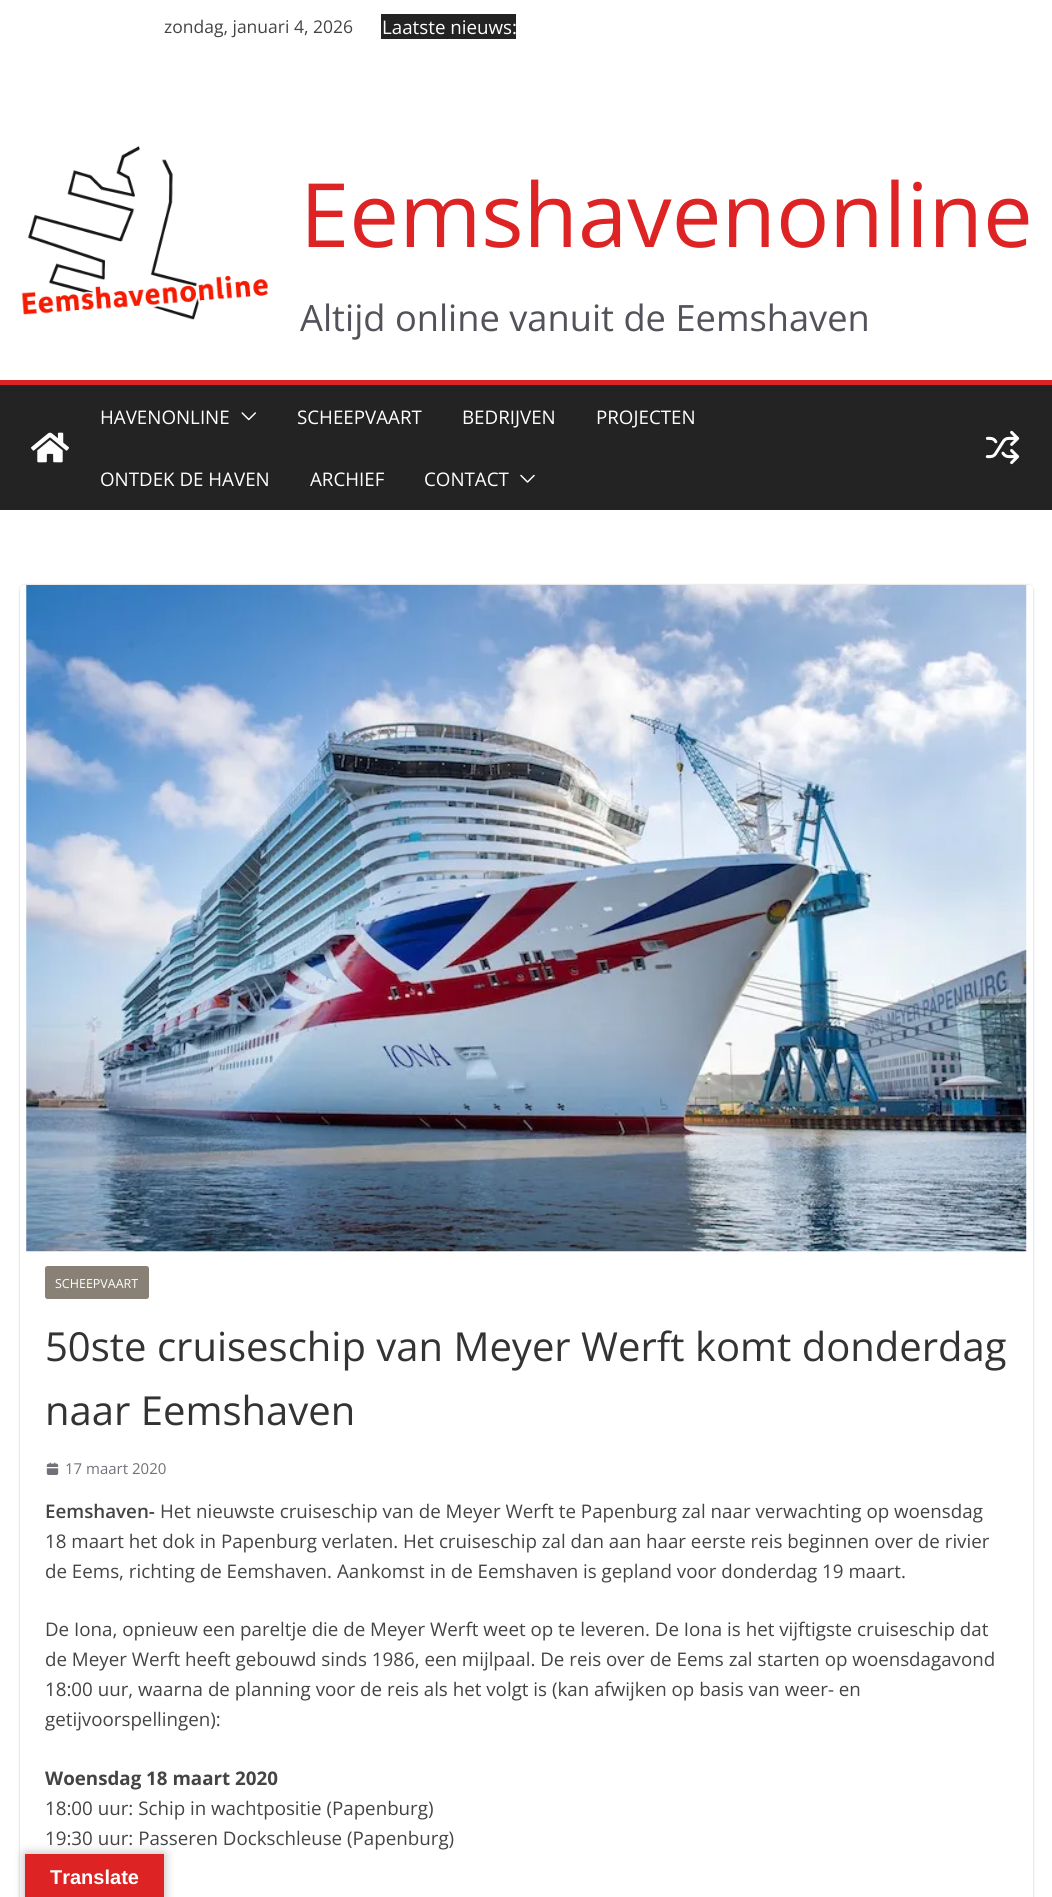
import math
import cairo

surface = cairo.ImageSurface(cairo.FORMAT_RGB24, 1052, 1897)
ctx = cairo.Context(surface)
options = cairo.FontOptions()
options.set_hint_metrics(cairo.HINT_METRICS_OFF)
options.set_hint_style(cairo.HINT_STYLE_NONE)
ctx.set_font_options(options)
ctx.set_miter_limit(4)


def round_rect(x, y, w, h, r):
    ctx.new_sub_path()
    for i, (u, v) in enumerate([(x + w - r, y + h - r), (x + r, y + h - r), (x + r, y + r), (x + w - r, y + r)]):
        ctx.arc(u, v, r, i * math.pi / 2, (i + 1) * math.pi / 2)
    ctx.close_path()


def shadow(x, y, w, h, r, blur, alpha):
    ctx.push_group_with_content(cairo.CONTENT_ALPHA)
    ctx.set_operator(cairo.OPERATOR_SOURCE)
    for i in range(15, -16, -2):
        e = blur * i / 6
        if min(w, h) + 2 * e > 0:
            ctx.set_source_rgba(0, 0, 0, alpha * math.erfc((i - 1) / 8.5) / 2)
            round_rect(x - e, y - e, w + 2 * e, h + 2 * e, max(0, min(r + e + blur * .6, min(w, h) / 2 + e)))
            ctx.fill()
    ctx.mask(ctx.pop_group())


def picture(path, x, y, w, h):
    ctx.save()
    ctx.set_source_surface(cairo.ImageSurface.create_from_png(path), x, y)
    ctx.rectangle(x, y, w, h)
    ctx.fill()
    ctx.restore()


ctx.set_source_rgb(1, 1, 1)
ctx.paint()
ctx.select_font_face("Open Sans")
ctx.set_font_size(17.5)
ctx.set_source_rgb(0.267, 0.267, 0.267)
ctx.move_to(164, 33)
ctx.show_text("zondag, januari 4, 2026")
ctx.set_source_rgb(0.137, 0.137, 0.137)
ctx.rectangle(381, 14, 135, 25)
ctx.fill()
ctx.set_font_size(18.75)
ctx.set_source_rgb(1, 1, 1)
ctx.move_to(382, 34)
ctx.show_text("Laatste nieuws:")
picture("img1.png", 21, 146, 247, 174)
ctx.set_font_size(88.75)
ctx.set_source_rgb(0.867, 0.137, 0.137)
ctx.move_to(300, 247)
ctx.show_text("Eemshavenonline")
ctx.set_font_size(36.25)
ctx.set_source_rgb(0.322, 0.322, 0.357)
ctx.move_to(300, 331)
ctx.show_text("Altijd online vanuit de Eemshaven")
ctx.set_source_rgb(0.137, 0.137, 0.137)
ctx.rectangle(0, 385, 1052, 125)
ctx.fill()
ctx.set_source_rgb(0.867, 0.137, 0.137)
ctx.rectangle(0, 380, 1052, 5)
ctx.fill()
picture("img2.png", 31, 432, 38, 31)
ctx.set_font_size(18.75)
ctx.set_source_rgb(1, 1, 1)
ctx.move_to(100, 424)
ctx.show_text("HAVENONLINE")
picture("img3.png", 241, 412, 15, 9)
ctx.move_to(297, 424)
ctx.show_text("SCHEEPVAART")
ctx.move_to(462, 424)
ctx.show_text("BEDRIJVEN")
ctx.move_to(596, 424)
ctx.show_text("PROJECTEN")
ctx.move_to(100, 486)
ctx.show_text("ONTDEK DE HAVEN")
ctx.move_to(310, 486)
ctx.show_text("ARCHIEF")
ctx.move_to(424, 486)
ctx.show_text("CONTACT")
picture("img4.png", 520, 474, 15, 9)
picture("img5.png", 985, 430, 35, 35)
ctx.save()
ctx.set_fill_rule(cairo.FILL_RULE_EVEN_ODD)
ctx.new_path()
ctx.move_to(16, 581)
ctx.line_to(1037, 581)
ctx.line_to(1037, 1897)
ctx.line_to(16, 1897)
ctx.close_path()
ctx.move_to(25, 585)
ctx.line_to(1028, 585)
ctx.curve_to(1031, 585, 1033, 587, 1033, 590)
ctx.line_to(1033, 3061)
ctx.curve_to(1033, 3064, 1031, 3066, 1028, 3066)
ctx.line_to(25, 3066)
ctx.curve_to(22, 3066, 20, 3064, 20, 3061)
ctx.line_to(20, 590)
ctx.curve_to(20, 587, 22, 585, 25, 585)
ctx.close_path()
ctx.clip()
ctx.set_source_rgb(0, 0, 0)
shadow(20, 585, 1013, 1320, 5, 1, 0.24)
ctx.restore()
picture("img6.png", 26, 585, 1001, 667)
ctx.set_source_rgb(0.537, 0.506, 0.463)
round_rect(45, 1266, 104, 33, 2.5)
ctx.fill()
ctx.set_font_size(12.5)
ctx.set_source_rgb(1, 1, 1)
ctx.move_to(55, 1288)
ctx.show_text("SCHEEPVAART")
ctx.select_font_face("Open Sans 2")
ctx.set_font_size(40)
ctx.set_source_rgb(0.2, 0.2, 0.2)
ctx.move_to(45, 1361)
ctx.show_text("50ste cruiseschip van Meyer Werft komt donderdag")
ctx.move_to(45, 1425)
ctx.show_text("naar Eemshaven")
picture("img7.png", 46, 1462, 13, 13)
ctx.select_font_face("Open Sans")
ctx.set_font_size(15)
ctx.set_source_rgb(0.443, 0.443, 0.478)
ctx.move_to(65, 1474)
ctx.show_text("17 maart 2020")
ctx.select_font_face("Open Sans SemiBold")
ctx.set_font_size(18.75)
ctx.set_source_rgb(0.267, 0.267, 0.267)
ctx.move_to(45, 1518)
ctx.show_text("Eemshaven-")
ctx.select_font_face("Open Sans")
ctx.move_to(160, 1518)
ctx.show_text("Het nieuwste cruiseschip van de Meyer Werft te Papenburg zal naar verwachting op woensdag")
ctx.move_to(45, 1548)
ctx.show_text("18 maart het dok in Papenburg verlaten. Het cruiseschip zal dan aan haar eerste reis beginnen over de rivier")
ctx.move_to(45, 1578)
ctx.show_text("de Eems, richting de Eemshaven. Aankomst in de Eemshaven is gepland voor donderdag 19 maart.")
ctx.move_to(45, 1636)
ctx.show_text("De Iona, opnieuw een pareltje die de Meyer Werft weet op te leveren. De Iona is het vijftigste cruiseschip dat")
ctx.move_to(45, 1666)
ctx.show_text("de Meyer Werft heeft gebouwd sinds 1986, een mijlpaal. De reis over de Eems zal starten op woensdagavond")
ctx.move_to(45, 1696)
ctx.show_text("18:00 uur, waarna de planning voor de reis als het volgt is (kan afwijken op basis van weer- en")
ctx.move_to(45, 1726)
ctx.show_text("getijvoorspellingen):")
ctx.select_font_face("Open Sans", cairo.FONT_SLANT_NORMAL, cairo.FONT_WEIGHT_BOLD)
ctx.move_to(45, 1785)
ctx.show_text("Woensdag 18 maart 2020")
ctx.select_font_face("Open Sans")
ctx.move_to(45, 1815)
ctx.show_text("18:00 uur: Schip in wachtpositie (Papenburg)")
ctx.move_to(45, 1845)
ctx.show_text("19:30 uur: Passeren Dockschleuse (Papenburg)")
ctx.set_source_rgb(0, 0, 0)
shadow(25, 1854, 139, 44, 0, 5.5, 0.3)
ctx.set_source_rgb(0.867, 0.137, 0.137)
ctx.rectangle(25, 1854, 139, 43)
ctx.fill()
ctx.select_font_face("Liberation Sans", cairo.FONT_SLANT_NORMAL, cairo.FONT_WEIGHT_BOLD)
ctx.set_font_size(20)
ctx.set_source_rgb(1, 1, 1)
ctx.move_to(50, 1884)
ctx.show_text("Translate")
surface.write_to_png("page.png")
